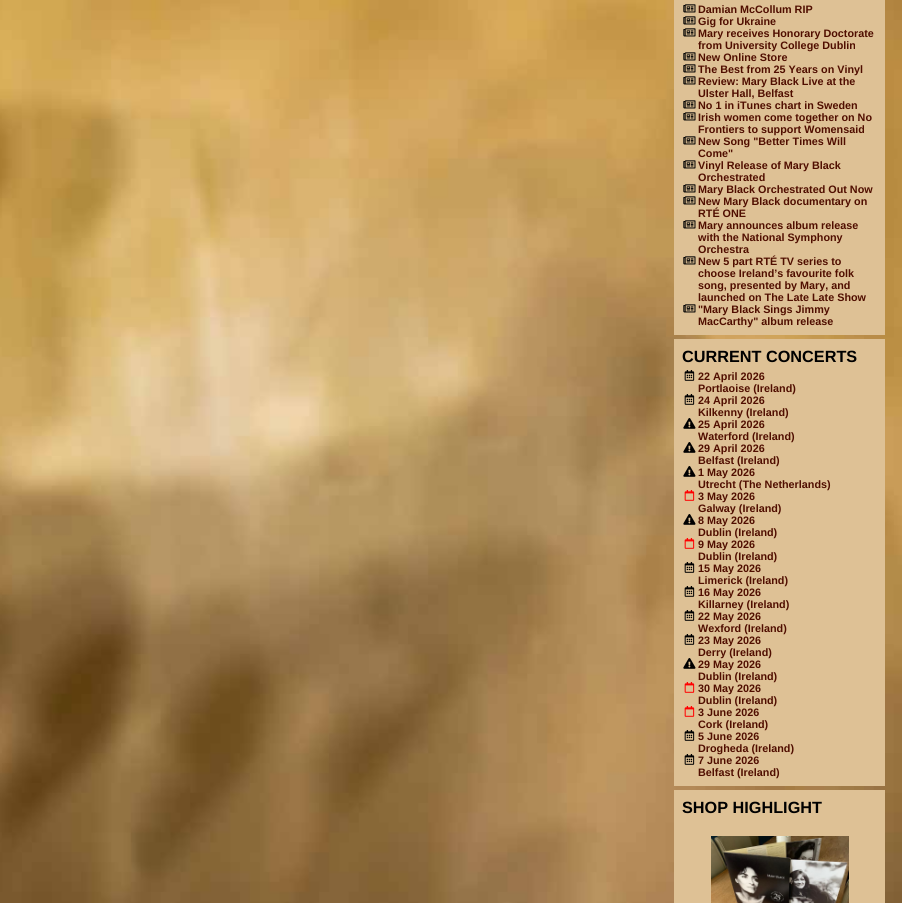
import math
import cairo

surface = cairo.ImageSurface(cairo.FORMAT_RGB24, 902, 903)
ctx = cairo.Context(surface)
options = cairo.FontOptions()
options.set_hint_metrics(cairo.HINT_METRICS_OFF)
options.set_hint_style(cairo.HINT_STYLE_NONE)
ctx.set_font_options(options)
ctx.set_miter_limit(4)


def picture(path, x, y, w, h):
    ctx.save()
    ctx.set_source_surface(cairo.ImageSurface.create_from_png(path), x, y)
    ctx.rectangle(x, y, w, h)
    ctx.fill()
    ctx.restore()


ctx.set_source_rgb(1, 1, 1)
ctx.paint()
picture("img1.png", 0, 0, 902, 903)
ctx.set_source_rgb(0.871, 0.757, 0.584)
ctx.rectangle(674, 0, 211, 335)
ctx.fill()
picture("img2.png", 683, 4, 13, 9)
ctx.select_font_face("Liberation Sans", cairo.FONT_SLANT_NORMAL, cairo.FONT_WEIGHT_BOLD)
ctx.set_font_size(10.8)
ctx.set_source_rgb(0.314, 0.055, 0)
ctx.move_to(698, 13)
ctx.show_text("Damian McCollum RIP")
picture("img2.png", 683, 16, 13, 9)
ctx.move_to(698, 25)
ctx.show_text("Gig for Ukraine")
picture("img2.png", 683, 28, 13, 9)
ctx.move_to(698, 37)
ctx.show_text("Mary receives Honorary Doctorate")
ctx.move_to(698, 49)
ctx.show_text("from University College Dublin")
picture("img2.png", 683, 52, 13, 9)
ctx.move_to(698, 61)
ctx.show_text("New Online Store")
picture("img2.png", 683, 64, 13, 9)
ctx.move_to(698, 73)
ctx.show_text("The Best from 25 Years on Vinyl")
picture("img2.png", 683, 76, 13, 9)
ctx.move_to(698, 85)
ctx.show_text("Review: Mary Black Live at the")
ctx.move_to(698, 97)
ctx.show_text("Ulster Hall, Belfast")
picture("img2.png", 683, 100, 13, 9)
ctx.move_to(698, 109)
ctx.show_text("No 1 in iTunes chart in Sweden")
picture("img2.png", 683, 112, 13, 9)
ctx.move_to(698, 121)
ctx.show_text("Irish women come together on No")
ctx.move_to(698, 133)
ctx.show_text("Frontiers to support Womensaid")
picture("img2.png", 683, 136, 13, 9)
ctx.move_to(698, 145)
ctx.show_text("New Song \"Better Times Will")
ctx.move_to(698, 157)
ctx.show_text("Come\"")
picture("img2.png", 683, 160, 13, 9)
ctx.move_to(698, 169)
ctx.show_text("Vinyl Release of Mary Black")
ctx.move_to(698, 181)
ctx.show_text("Orchestrated")
picture("img2.png", 683, 184, 13, 9)
ctx.move_to(698, 193)
ctx.show_text("Mary Black Orchestrated Out Now")
picture("img2.png", 683, 196, 13, 9)
ctx.move_to(698, 205)
ctx.show_text("New Mary Black documentary on")
ctx.move_to(698, 217)
ctx.show_text("RTÉ ONE")
picture("img2.png", 683, 220, 13, 9)
ctx.move_to(698, 229)
ctx.show_text("Mary announces album release")
ctx.move_to(698, 241)
ctx.show_text("with the National Symphony")
ctx.move_to(698, 253)
ctx.show_text("Orchestra")
picture("img2.png", 683, 256, 13, 9)
ctx.move_to(698, 265)
ctx.show_text("New 5 part RTÉ TV series to")
ctx.move_to(698, 277)
ctx.show_text("choose Ireland’s favourite folk")
ctx.move_to(698, 289)
ctx.show_text("song, presented by Mary, and")
ctx.move_to(698, 301)
ctx.show_text("launched on The Late Late Show")
picture("img2.png", 683, 304, 13, 9)
ctx.move_to(698, 313)
ctx.show_text("\"Mary Black Sings Jimmy")
ctx.move_to(698, 325)
ctx.show_text("MacCarthy\" album release")
ctx.set_source_rgb(0.871, 0.757, 0.584)
ctx.rectangle(674, 339, 211, 447)
ctx.fill()
ctx.set_font_size(16.25)
ctx.set_source_rgb(0, 0, 0)
ctx.move_to(682, 362)
ctx.show_text("CURRENT CONCERTS")
picture("img3.png", 684, 370, 11, 11)
ctx.set_font_size(10.8)
ctx.set_source_rgb(0.314, 0.055, 0)
ctx.move_to(698, 380)
ctx.show_text("22 April 2026")
ctx.move_to(698, 392)
ctx.show_text("Portlaoise (Ireland)")
picture("img3.png", 684, 394, 11, 11)
ctx.move_to(698, 404)
ctx.show_text("24 April 2026")
ctx.move_to(698, 416)
ctx.show_text("Kilkenny (Ireland)")
picture("img4.png", 683, 418, 13, 11)
ctx.move_to(698, 428)
ctx.show_text("25 April 2026")
ctx.move_to(698, 440)
ctx.show_text("Waterford (Ireland)")
picture("img4.png", 683, 442, 13, 11)
ctx.move_to(698, 452)
ctx.show_text("29 April 2026")
ctx.move_to(698, 464)
ctx.show_text("Belfast (Ireland)")
picture("img4.png", 683, 466, 13, 11)
ctx.move_to(698, 476)
ctx.show_text("1 May 2026")
ctx.move_to(698, 488)
ctx.show_text("Utrecht (The Netherlands)")
picture("img5.png", 684, 490, 11, 11)
ctx.move_to(698, 500)
ctx.show_text("3 May 2026")
ctx.move_to(698, 512)
ctx.show_text("Galway (Ireland)")
picture("img4.png", 683, 514, 13, 11)
ctx.move_to(698, 524)
ctx.show_text("8 May 2026")
ctx.move_to(698, 536)
ctx.show_text("Dublin (Ireland)")
picture("img5.png", 684, 538, 11, 11)
ctx.move_to(698, 548)
ctx.show_text("9 May 2026")
ctx.move_to(698, 560)
ctx.show_text("Dublin (Ireland)")
picture("img3.png", 684, 562, 11, 11)
ctx.move_to(698, 572)
ctx.show_text("15 May 2026")
ctx.move_to(698, 584)
ctx.show_text("Limerick (Ireland)")
picture("img3.png", 684, 586, 11, 11)
ctx.move_to(698, 596)
ctx.show_text("16 May 2026")
ctx.move_to(698, 608)
ctx.show_text("Killarney (Ireland)")
picture("img3.png", 684, 610, 11, 11)
ctx.move_to(698, 620)
ctx.show_text("22 May 2026")
ctx.move_to(698, 632)
ctx.show_text("Wexford (Ireland)")
picture("img3.png", 684, 634, 11, 11)
ctx.move_to(698, 644)
ctx.show_text("23 May 2026")
ctx.move_to(698, 656)
ctx.show_text("Derry (Ireland)")
picture("img4.png", 683, 658, 13, 11)
ctx.move_to(698, 668)
ctx.show_text("29 May 2026")
ctx.move_to(698, 680)
ctx.show_text("Dublin (Ireland)")
picture("img5.png", 684, 682, 11, 11)
ctx.move_to(698, 692)
ctx.show_text("30 May 2026")
ctx.move_to(698, 704)
ctx.show_text("Dublin (Ireland)")
picture("img5.png", 684, 706, 11, 11)
ctx.move_to(698, 716)
ctx.show_text("3 June 2026")
ctx.move_to(698, 728)
ctx.show_text("Cork (Ireland)")
picture("img3.png", 684, 730, 11, 11)
ctx.move_to(698, 740)
ctx.show_text("5 June 2026")
ctx.move_to(698, 752)
ctx.show_text("Drogheda (Ireland)")
picture("img3.png", 684, 754, 11, 11)
ctx.move_to(698, 764)
ctx.show_text("7 June 2026")
ctx.move_to(698, 776)
ctx.show_text("Belfast (Ireland)")
ctx.set_source_rgb(0.871, 0.757, 0.584)
ctx.rectangle(674, 790, 211, 113)
ctx.fill()
ctx.set_font_size(16.25)
ctx.set_source_rgb(0, 0, 0)
ctx.move_to(682, 813)
ctx.show_text("SHOP HIGHLIGHT")
picture("img6.png", 711, 836, 138, 67)
surface.write_to_png("page.png")
